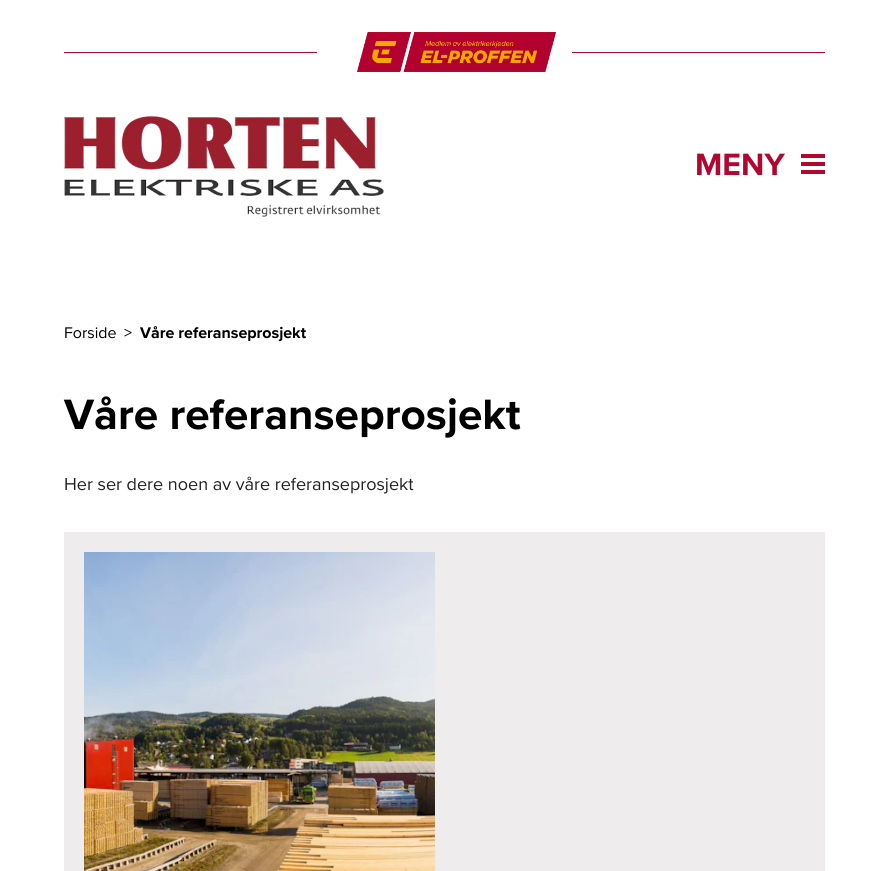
import math
import cairo

surface = cairo.ImageSurface(cairo.FORMAT_RGB24, 889, 871)
ctx = cairo.Context(surface)
options = cairo.FontOptions()
options.set_hint_metrics(cairo.HINT_METRICS_OFF)
options.set_hint_style(cairo.HINT_STYLE_NONE)
ctx.set_font_options(options)
ctx.set_miter_limit(4)


def picture(path, x, y, w, h):
    ctx.save()
    ctx.set_source_surface(cairo.ImageSurface.create_from_png(path), x, y)
    ctx.rectangle(x, y, w, h)
    ctx.fill()
    ctx.restore()


ctx.set_source_rgb(1, 1, 1)
ctx.paint()
ctx.set_source_rgb(0.694, 0.035, 0.196)
ctx.rectangle(64, 52, 253, 1)
ctx.fill()
picture("img1.png", 357, 32, 199, 40)
ctx.rectangle(572, 52, 253, 1)
ctx.fill()
picture("img2.png", 64, 115, 320, 102)
ctx.select_font_face("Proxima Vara", cairo.FONT_SLANT_ITALIC, cairo.FONT_WEIGHT_BOLD)
ctx.set_font_size(32)
ctx.move_to(695, 175)
ctx.show_text("MENY")
ctx.rectangle(801, 154, 24, 4)
ctx.fill()
ctx.rectangle(801, 162, 24, 4)
ctx.fill()
ctx.rectangle(801, 170, 24, 4)
ctx.fill()
ctx.select_font_face("Proxima Vara")
ctx.set_font_size(16)
ctx.set_source_rgb(0, 0, 0)
ctx.move_to(64, 338)
ctx.show_text("Forside")
ctx.move_to(124, 338)
ctx.show_text(">")
ctx.select_font_face("Proxima Vara", cairo.FONT_SLANT_NORMAL, cairo.FONT_WEIGHT_BOLD)
ctx.move_to(140, 338)
ctx.show_text("Våre referanseprosjekt")
ctx.set_font_size(44)
ctx.move_to(64, 429)
ctx.show_text("Våre referanseprosjekt")
ctx.select_font_face("Proxima Vara")
ctx.set_font_size(18)
ctx.set_source_rgb(0.137, 0.122, 0.125)
ctx.move_to(64, 490)
ctx.show_text("Her ser dere noen av våre referanseprosjekt")
ctx.set_source_rgb(0.933, 0.925, 0.925)
ctx.rectangle(64, 532, 761, 339)
ctx.fill()
picture("img3.png", 84, 552, 351, 319)
surface.write_to_png("page.png")
